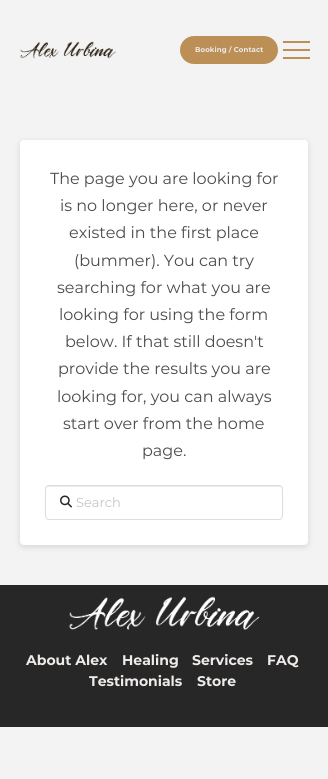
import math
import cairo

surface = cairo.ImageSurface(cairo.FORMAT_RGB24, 328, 779)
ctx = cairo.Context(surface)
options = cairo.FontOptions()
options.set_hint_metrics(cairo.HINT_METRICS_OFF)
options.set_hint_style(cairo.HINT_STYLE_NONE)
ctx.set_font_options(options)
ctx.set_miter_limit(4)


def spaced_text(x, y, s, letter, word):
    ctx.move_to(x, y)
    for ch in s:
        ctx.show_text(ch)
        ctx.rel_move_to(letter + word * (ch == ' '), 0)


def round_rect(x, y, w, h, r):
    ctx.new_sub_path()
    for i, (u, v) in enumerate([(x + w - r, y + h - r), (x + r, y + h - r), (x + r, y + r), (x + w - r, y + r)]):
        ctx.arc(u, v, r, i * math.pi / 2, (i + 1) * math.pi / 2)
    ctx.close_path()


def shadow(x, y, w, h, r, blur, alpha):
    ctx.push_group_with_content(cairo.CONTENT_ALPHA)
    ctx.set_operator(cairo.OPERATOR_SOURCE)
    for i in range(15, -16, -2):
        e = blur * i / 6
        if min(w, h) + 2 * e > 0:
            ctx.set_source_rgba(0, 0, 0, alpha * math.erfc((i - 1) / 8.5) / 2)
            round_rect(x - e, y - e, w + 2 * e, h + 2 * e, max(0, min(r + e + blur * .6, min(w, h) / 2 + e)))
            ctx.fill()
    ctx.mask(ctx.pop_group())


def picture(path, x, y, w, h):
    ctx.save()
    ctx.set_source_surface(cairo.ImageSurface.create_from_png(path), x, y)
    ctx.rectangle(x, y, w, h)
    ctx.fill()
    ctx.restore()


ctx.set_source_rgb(0.953, 0.953, 0.953)
ctx.paint()
picture("img1.png", 20, 41, 96, 18)
ctx.set_source_rgb(0.737, 0.561, 0.337)
round_rect(181.5, 37.5, 95, 25, 12.5)
ctx.fill_preserve()
ctx.set_line_width(3)
ctx.stroke()
ctx.select_font_face("Montserrat", cairo.FONT_SLANT_NORMAL, cairo.FONT_WEIGHT_BOLD)
ctx.set_font_size(7)
ctx.set_source_rgb(0.933, 0.918, 0.914)
spaced_text(195, 52, "Booking / Contact", 0.1, 0)
ctx.set_source_rgb(0.737, 0.561, 0.337)
ctx.rectangle(283, 41, 27, 2)
ctx.fill()
ctx.rectangle(283, 49, 27, 2)
ctx.fill()
ctx.rectangle(283, 57, 27, 2)
ctx.fill()
ctx.set_source_rgb(0, 0, 0)
shadow(20, 142, 288, 405, 4, 3, 0.13)
ctx.set_source_rgb(1, 1, 1)
round_rect(20, 140, 288, 405, 4)
ctx.fill()
ctx.select_font_face("Montserrat")
ctx.set_font_size(16)
ctx.set_source_rgb(0.302, 0.298, 0.302)
ctx.move_to(50, 184)
ctx.show_text("The page you are looking for")
ctx.move_to(60, 211)
ctx.show_text("is no longer here, or never")
ctx.move_to(69, 238)
ctx.show_text("existed in the first place")
ctx.move_to(74, 266)
ctx.show_text("(bummer). You can try")
ctx.move_to(57, 293)
ctx.show_text("searching for what you are")
ctx.move_to(59, 320)
ctx.show_text("looking for using the form")
ctx.move_to(65, 347)
ctx.show_text("below. If that still doesn't")
ctx.move_to(58, 374)
ctx.show_text("provide the results you are")
ctx.move_to(57, 402)
ctx.show_text("looking for, you can always")
ctx.move_to(63, 429)
ctx.show_text("start over from the home")
ctx.move_to(142, 456)
ctx.show_text("page.")
ctx.set_source_rgb(0.925, 0.925, 0.925)
ctx.new_path()
ctx.move_to(49, 487)
ctx.line_to(280, 487)
ctx.line_to(282, 488)
ctx.line_to(282, 490)
ctx.curve_to(282, 488, 281, 486, 279, 486)
ctx.line_to(49, 486)
ctx.curve_to(47, 486, 46, 488, 46, 490)
ctx.curve_to(46, 488, 47, 487, 49, 487)
ctx.close_path()
ctx.fill()
round_rect(45.5, 485.5, 237, 34, 3.5)
ctx.set_source_rgb(0.867, 0.867, 0.867)
ctx.set_line_width(1)
ctx.stroke()
picture("img2.png", 60, 495, 12, 13)
ctx.set_font_size(13)
ctx.set_source_rgb(0.773, 0.773, 0.773)
ctx.move_to(76, 507)
ctx.show_text("Search")
ctx.set_source_rgb(0.153, 0.153, 0.153)
ctx.rectangle(0, 585, 328, 142)
ctx.fill()
picture("img3.png", 69, 596, 191, 34)
ctx.select_font_face("Montserrat", cairo.FONT_SLANT_NORMAL, cairo.FONT_WEIGHT_BOLD)
ctx.set_font_size(14)
ctx.set_source_rgb(0.933, 0.918, 0.914)
ctx.move_to(26, 665)
ctx.show_text("About Alex")
ctx.move_to(122, 665)
ctx.show_text("Healing")
ctx.move_to(192, 665)
ctx.show_text("Services")
ctx.move_to(267, 665)
ctx.show_text("FAQ")
ctx.move_to(89, 686)
ctx.show_text("Testimonials")
ctx.move_to(197, 686)
ctx.show_text("Store")
ctx.set_source_rgb(0.141, 0.153, 0.165)
ctx.rectangle(20, 701, 288, 2)
ctx.fill()
surface.write_to_png("page.png")
